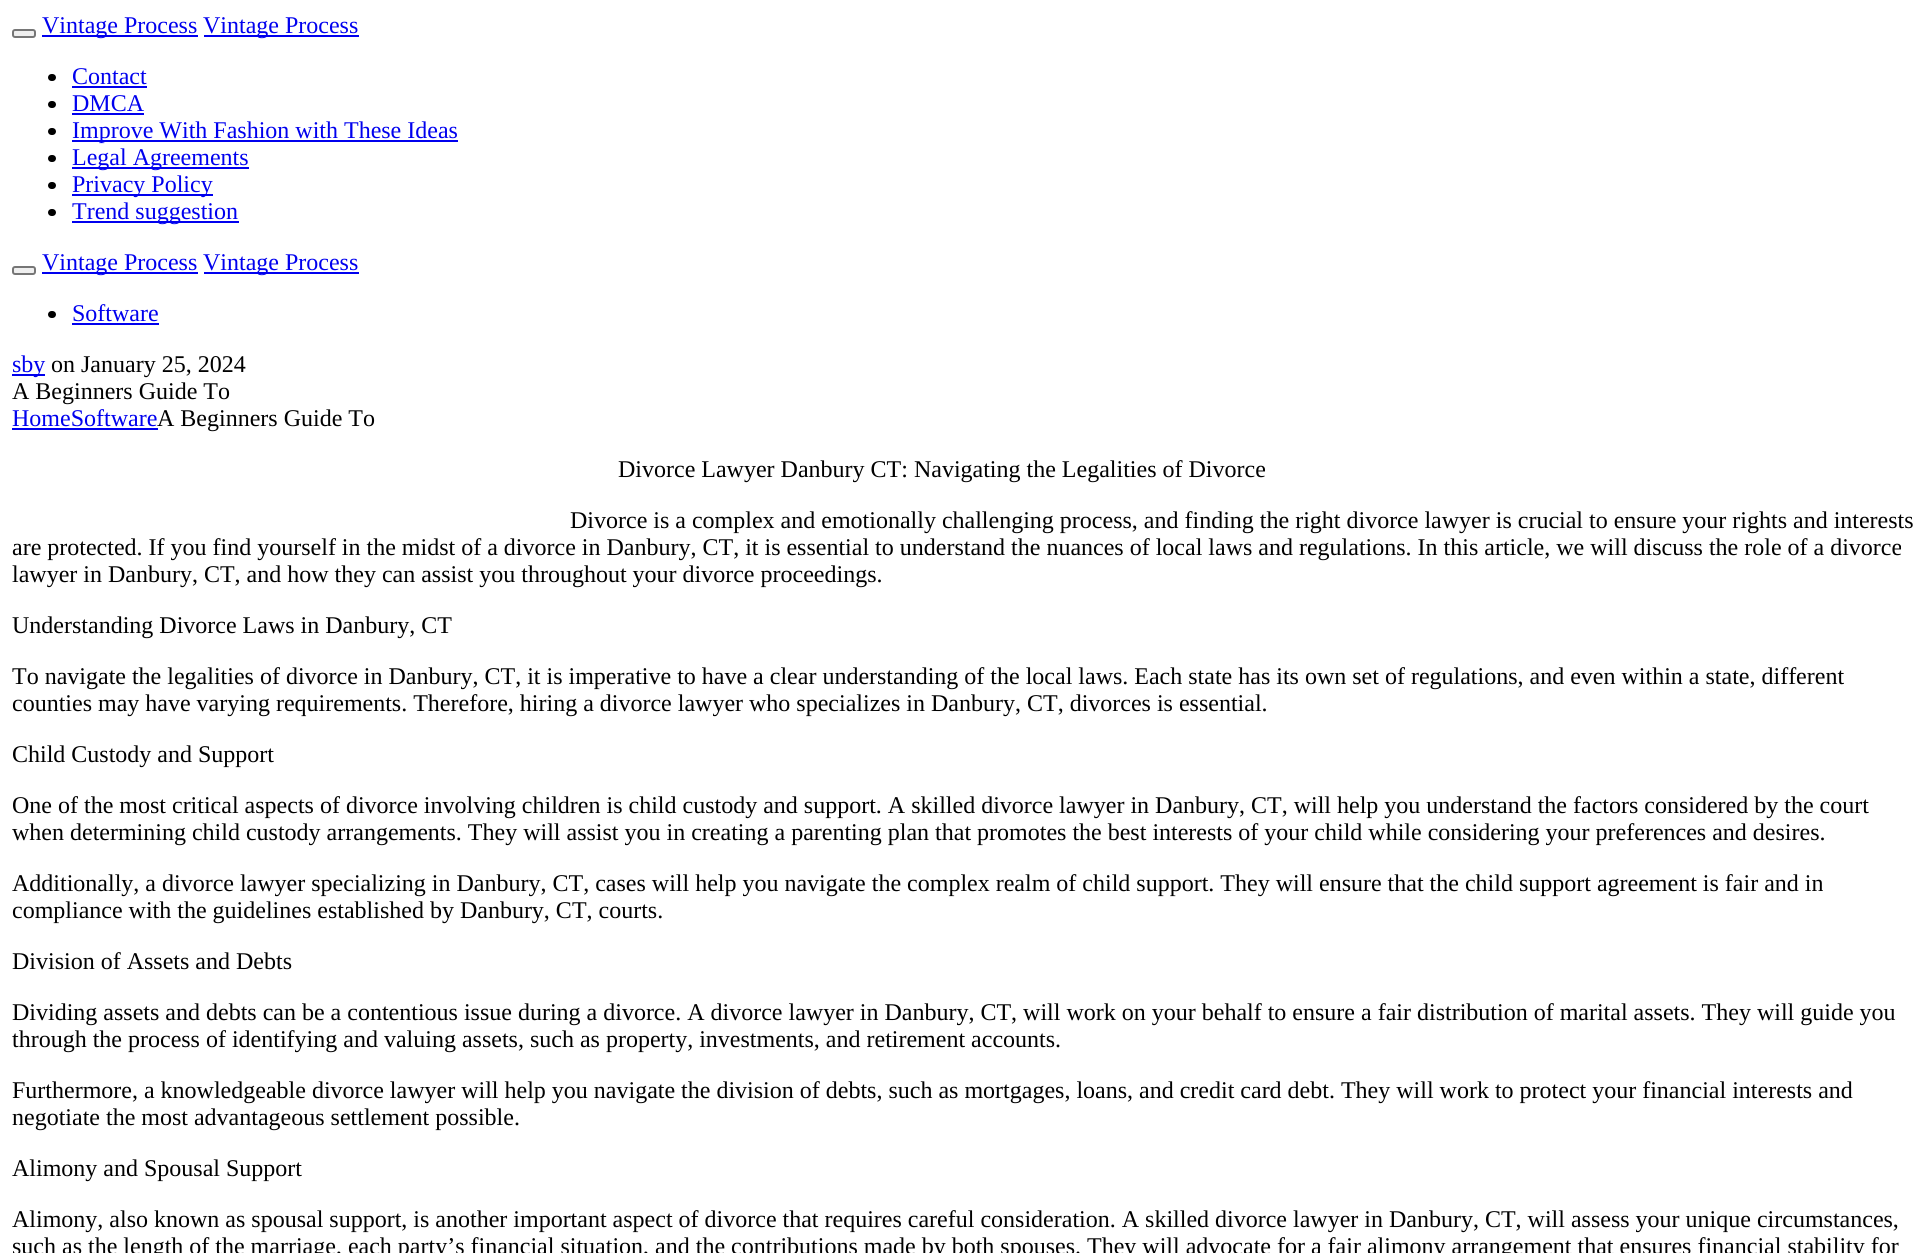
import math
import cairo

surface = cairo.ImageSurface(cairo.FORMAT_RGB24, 1932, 1253)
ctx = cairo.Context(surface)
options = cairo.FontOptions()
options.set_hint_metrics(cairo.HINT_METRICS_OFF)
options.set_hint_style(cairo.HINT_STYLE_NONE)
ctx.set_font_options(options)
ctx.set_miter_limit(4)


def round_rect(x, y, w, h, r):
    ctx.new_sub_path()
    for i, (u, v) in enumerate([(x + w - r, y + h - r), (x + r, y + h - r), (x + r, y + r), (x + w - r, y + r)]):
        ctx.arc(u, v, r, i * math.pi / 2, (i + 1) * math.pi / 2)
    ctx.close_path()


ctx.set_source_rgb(1, 1, 1)
ctx.paint()
ctx.set_source_rgb(0.937, 0.937, 0.937)
round_rect(13, 30, 22, 7, 2)
ctx.fill_preserve()
ctx.set_source_rgb(0.463, 0.463, 0.463)
ctx.stroke()
ctx.set_source_rgb(0, 0, 0.933)
ctx.rectangle(42, 35, 156, 2)
ctx.fill()
ctx.select_font_face("Liberation Serif")
ctx.set_font_size(24)
ctx.move_to(42, 33)
ctx.show_text("Vintage Process")
ctx.rectangle(204, 35, 155, 2)
ctx.fill()
ctx.move_to(203, 33)
ctx.show_text("Vintage Process")
ctx.set_source_rgb(0, 0, 0)
round_rect(48, 74, 8, 7, 3.5)
ctx.fill()
ctx.set_source_rgb(0, 0, 0.933)
ctx.move_to(72, 84)
ctx.show_text("Contact")
ctx.rectangle(72, 86, 75, 2)
ctx.fill()
ctx.set_source_rgb(0, 0, 0)
round_rect(48, 101, 8, 7, 3.5)
ctx.fill()
ctx.set_source_rgb(0, 0, 0.933)
ctx.move_to(72, 111)
ctx.show_text("DMCA")
ctx.rectangle(72, 113, 72, 2)
ctx.fill()
ctx.set_source_rgb(0, 0, 0)
round_rect(48, 128, 8, 7, 3.5)
ctx.fill()
ctx.set_source_rgb(0, 0, 0.933)
ctx.rectangle(72, 140, 386, 2)
ctx.fill()
ctx.move_to(72, 138)
ctx.show_text("Improve With Fashion with These Ideas")
ctx.set_source_rgb(0, 0, 0)
round_rect(48, 155, 8, 7, 3.5)
ctx.fill()
ctx.set_source_rgb(0, 0, 0.933)
ctx.rectangle(72, 167, 177, 2)
ctx.fill()
ctx.move_to(72, 165)
ctx.show_text("Legal Agreements")
ctx.set_source_rgb(0, 0, 0)
round_rect(48, 182, 8, 7, 3.5)
ctx.fill()
ctx.set_source_rgb(0, 0, 0.933)
ctx.rectangle(72, 194, 141, 2)
ctx.fill()
ctx.move_to(72, 192)
ctx.show_text("Privacy Policy")
ctx.set_source_rgb(0, 0, 0)
round_rect(48, 209, 8, 7, 3.5)
ctx.fill()
ctx.set_source_rgb(0, 0, 0.933)
ctx.rectangle(72, 221, 167, 2)
ctx.fill()
ctx.move_to(72, 219)
ctx.show_text("Trend suggestion")
ctx.set_source_rgb(0.937, 0.937, 0.937)
round_rect(13, 267, 22, 7, 2)
ctx.fill_preserve()
ctx.set_source_rgb(0.463, 0.463, 0.463)
ctx.stroke()
ctx.set_source_rgb(0, 0, 0.933)
ctx.rectangle(42, 272, 156, 2)
ctx.fill()
ctx.move_to(42, 270)
ctx.show_text("Vintage Process")
ctx.rectangle(204, 272, 155, 2)
ctx.fill()
ctx.move_to(203, 270)
ctx.show_text("Vintage Process")
ctx.set_source_rgb(0, 0, 0)
round_rect(48, 311, 8, 7, 3.5)
ctx.fill()
ctx.set_source_rgb(0, 0, 0.933)
ctx.move_to(72, 321)
ctx.show_text("Software")
ctx.rectangle(72, 323, 87, 2)
ctx.fill()
ctx.rectangle(12, 374, 33, 2)
ctx.fill()
ctx.move_to(12, 372)
ctx.show_text("sby")
ctx.set_source_rgb(0, 0, 0)
ctx.move_to(51, 372)
ctx.show_text("on January 25, 2024")
ctx.move_to(12, 399)
ctx.show_text("A Beginners Guide To")
ctx.set_source_rgb(0, 0, 0.933)
ctx.move_to(12, 426)
ctx.show_text("HomeSoftware")
ctx.rectangle(12, 428, 146, 2)
ctx.fill()
ctx.set_source_rgb(0, 0, 0)
ctx.move_to(157, 426)
ctx.show_text("A Beginners Guide To")
ctx.move_to(618, 477)
ctx.show_text("Divorce Lawyer Danbury CT: Navigating the Legalities of Divorce")
ctx.move_to(570, 528)
ctx.show_text("Divorce is a complex and emotionally challenging process, and finding the right divorce lawyer is crucial to ensure your rights and interests")
ctx.move_to(12, 555)
ctx.show_text("are protected. If you find yourself in the midst of a divorce in Danbury, CT, it is essential to understand the nuances of local laws and regulations. In this article, we will discuss the role of a divorce")
ctx.move_to(12, 582)
ctx.show_text("lawyer in Danbury, CT, and how they can assist you throughout your divorce proceedings.")
ctx.move_to(12, 633)
ctx.show_text("Understanding Divorce Laws in Danbury, CT")
ctx.move_to(12, 684)
ctx.show_text("To navigate the legalities of divorce in Danbury, CT, it is imperative to have a clear understanding of the local laws. Each state has its own set of regulations, and even within a state, different")
ctx.move_to(12, 711)
ctx.show_text("counties may have varying requirements. Therefore, hiring a divorce lawyer who specializes in Danbury, CT, divorces is essential.")
ctx.move_to(12, 762)
ctx.show_text("Child Custody and Support")
ctx.move_to(12, 813)
ctx.show_text("One of the most critical aspects of divorce involving children is child custody and support. A skilled divorce lawyer in Danbury, CT, will help you understand the factors considered by the court")
ctx.move_to(12, 840)
ctx.show_text("when determining child custody arrangements. They will assist you in creating a parenting plan that promotes the best interests of your child while considering your preferences and desires.")
ctx.move_to(12, 891)
ctx.show_text("Additionally, a divorce lawyer specializing in Danbury, CT, cases will help you navigate the complex realm of child support. They will ensure that the child support agreement is fair and in")
ctx.move_to(12, 918)
ctx.show_text("compliance with the guidelines established by Danbury, CT, courts.")
ctx.move_to(12, 969)
ctx.show_text("Division of Assets and Debts")
ctx.move_to(12, 1020)
ctx.show_text("Dividing assets and debts can be a contentious issue during a divorce. A divorce lawyer in Danbury, CT, will work on your behalf to ensure a fair distribution of marital assets. They will guide you")
ctx.move_to(12, 1047)
ctx.show_text("through the process of identifying and valuing assets, such as property, investments, and retirement accounts.")
ctx.move_to(12, 1098)
ctx.show_text("Furthermore, a knowledgeable divorce lawyer will help you navigate the division of debts, such as mortgages, loans, and credit card debt. They will work to protect your financial interests and")
ctx.move_to(12, 1125)
ctx.show_text("negotiate the most advantageous settlement possible.")
ctx.move_to(12, 1176)
ctx.show_text("Alimony and Spousal Support")
ctx.move_to(12, 1227)
ctx.show_text("Alimony, also known as spousal support, is another important aspect of divorce that requires careful consideration. A skilled divorce lawyer in Danbury, CT, will assess your unique circumstances,")
ctx.move_to(12, 1254)
ctx.show_text("such as the length of the marriage, each party’s financial situation, and the contributions made by both spouses. They will advocate for a fair alimony arrangement that ensures financial stability for")
surface.write_to_png("page.png")
